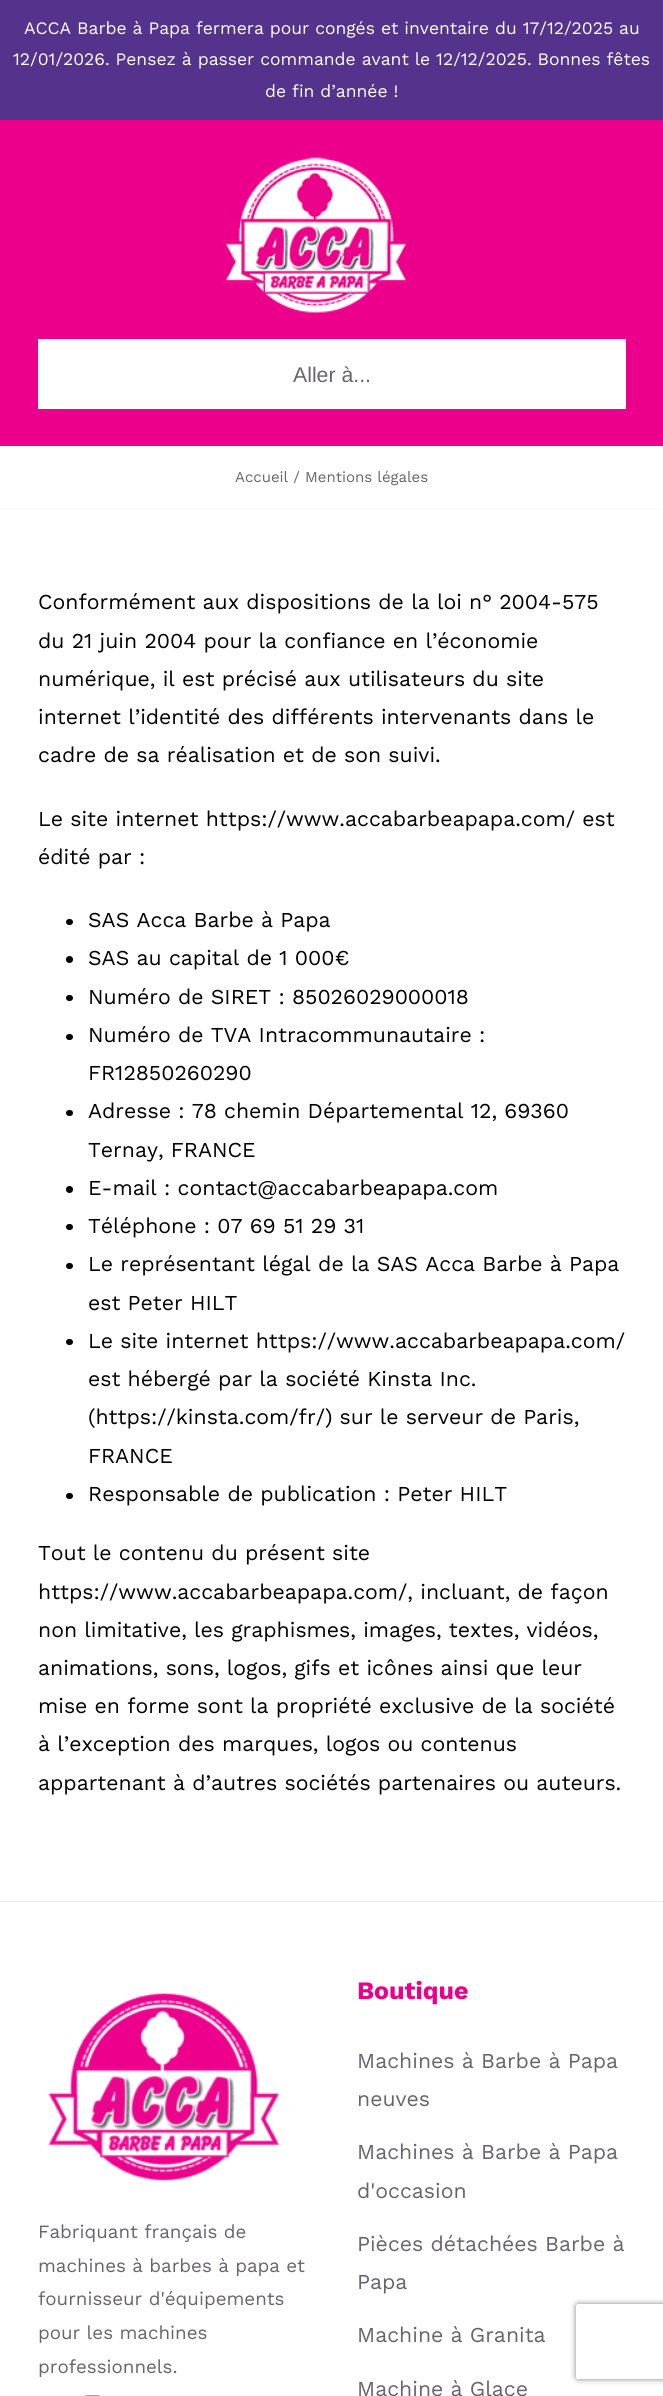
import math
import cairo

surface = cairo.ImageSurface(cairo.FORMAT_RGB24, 663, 2396)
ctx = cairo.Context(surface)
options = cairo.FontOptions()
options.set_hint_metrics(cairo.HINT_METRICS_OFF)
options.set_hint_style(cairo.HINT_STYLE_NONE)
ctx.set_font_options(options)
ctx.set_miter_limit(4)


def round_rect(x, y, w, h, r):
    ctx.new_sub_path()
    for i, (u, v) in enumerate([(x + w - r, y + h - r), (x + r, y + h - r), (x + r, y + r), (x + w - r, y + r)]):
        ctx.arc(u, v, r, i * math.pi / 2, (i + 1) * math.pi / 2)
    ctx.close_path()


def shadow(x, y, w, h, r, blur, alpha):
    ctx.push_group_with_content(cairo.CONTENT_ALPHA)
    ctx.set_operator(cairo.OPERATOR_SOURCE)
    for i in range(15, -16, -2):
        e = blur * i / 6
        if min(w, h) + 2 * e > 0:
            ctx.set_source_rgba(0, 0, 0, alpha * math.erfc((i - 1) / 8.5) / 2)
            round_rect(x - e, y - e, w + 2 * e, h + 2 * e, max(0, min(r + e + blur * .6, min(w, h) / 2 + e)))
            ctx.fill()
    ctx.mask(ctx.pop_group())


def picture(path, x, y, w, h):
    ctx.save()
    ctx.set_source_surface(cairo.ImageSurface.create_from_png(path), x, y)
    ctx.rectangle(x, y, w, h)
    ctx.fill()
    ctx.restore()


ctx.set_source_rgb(1, 1, 1)
ctx.paint()
ctx.set_source_rgb(0.333, 0.196, 0.545)
ctx.rectangle(0, 0, 663, 120)
ctx.fill()
ctx.select_font_face("Work Sans")
ctx.set_font_size(17.5)
ctx.set_source_rgb(1, 1, 1)
ctx.move_to(24, 34)
ctx.show_text("ACCA Barbe à Papa fermera pour congés et inventaire du 17/12/2025 au")
ctx.move_to(13, 65)
ctx.show_text("12/01/2026. Pensez à passer commande avant le 12/12/2025. Bonnes fêtes")
ctx.move_to(265, 97)
ctx.show_text("de fin d’année !")
ctx.set_source_rgb(0.925, 0, 0.545)
ctx.rectangle(0, 120, 663, 326)
ctx.fill()
picture("img1.png", 221, 157, 189, 156)
ctx.set_source_rgb(1, 1, 1)
ctx.rectangle(38, 339, 588, 70)
ctx.fill()
ctx.select_font_face("Liberation Sans")
ctx.set_font_size(21.25)
ctx.set_source_rgb(0.404, 0.388, 0.443)
ctx.move_to(293, 382)
ctx.show_text("Aller à...")
ctx.set_source_rgb(0.973, 0.965, 0.98)
ctx.rectangle(0, 446, 663, 1)
ctx.fill()
ctx.rectangle(0, 508, 663, 1)
ctx.fill()
ctx.select_font_face("Work Sans")
ctx.set_font_size(15)
ctx.set_source_rgb(0.404, 0.388, 0.443)
ctx.move_to(235, 482)
ctx.show_text("Accueil / Mentions légales")
ctx.set_font_size(21.25)
ctx.set_source_rgb(0, 0, 0)
ctx.move_to(38, 609)
ctx.show_text("Conformément aux dispositions de la loi n° 2004-575")
ctx.move_to(38, 648)
ctx.show_text("du 21 juin 2004 pour la confiance en l’économie")
ctx.move_to(38, 686)
ctx.show_text("numérique, il est précisé aux utilisateurs du site")
ctx.move_to(38, 724)
ctx.show_text("internet l’identité des différents intervenants dans le")
ctx.move_to(38, 762)
ctx.show_text("cadre de sa réalisation et de son suivi.")
ctx.move_to(38, 826)
ctx.show_text("Le site internet https://www.accabarbeapapa.com/ est")
ctx.move_to(38, 864)
ctx.show_text("édité par :")
round_rect(66, 919, 7, 6, 3)
ctx.fill()
ctx.move_to(88, 927)
ctx.show_text("SAS Acca Barbe à Papa")
ctx.new_path()
ctx.arc(69.5, 959.5, 3.5, 0, 2 * math.pi)
ctx.fill()
ctx.move_to(88, 965)
ctx.show_text("SAS au capital de 1 000€")
round_rect(66, 995, 7, 6, 3)
ctx.fill()
ctx.move_to(88, 1004)
ctx.show_text("Numéro de SIRET : 85026029000018")
round_rect(66, 1034, 7, 6, 3)
ctx.fill()
ctx.move_to(88, 1042)
ctx.show_text("Numéro de TVA Intracommunautaire :")
ctx.move_to(88, 1080)
ctx.show_text("FR12850260290")
round_rect(66, 1110, 7, 6, 3)
ctx.fill()
ctx.move_to(88, 1118)
ctx.show_text("Adresse : 78 chemin Départemental 12, 69360")
ctx.move_to(88, 1157)
ctx.show_text("Ternay, FRANCE")
ctx.new_path()
ctx.arc(69.5, 1189.5, 3.5, 0, 2 * math.pi)
ctx.fill()
ctx.move_to(88, 1195)
ctx.show_text("E-mail : contact@accabarbeapapa.com")
round_rect(66, 1224, 7, 6, 3)
ctx.fill()
ctx.move_to(88, 1233)
ctx.show_text("Téléphone : 07 69 51 29 31")
round_rect(66, 1263, 7, 6, 3)
ctx.fill()
ctx.move_to(88, 1271)
ctx.show_text("Le représentant légal de la SAS Acca Barbe à Papa")
ctx.move_to(88, 1310)
ctx.show_text("est Peter HILT")
round_rect(66, 1339, 7, 6, 3)
ctx.fill()
ctx.move_to(88, 1348)
ctx.show_text("Le site internet https://www.accabarbeapapa.com/")
ctx.move_to(88, 1386)
ctx.show_text("est hébergé par la société Kinsta Inc.")
ctx.move_to(88, 1424)
ctx.show_text("(https://kinsta.com/fr/) sur le serveur de Paris,")
ctx.move_to(88, 1463)
ctx.show_text("FRANCE")
round_rect(66, 1493, 7, 6, 3)
ctx.fill()
ctx.move_to(88, 1501)
ctx.show_text("Responsable de publication : Peter HILT")
ctx.move_to(38, 1560)
ctx.show_text("Tout le contenu du présent site")
ctx.move_to(38, 1599)
ctx.show_text("https://www.accabarbeapapa.com/, incluant, de façon")
ctx.move_to(38, 1637)
ctx.show_text("non limitative, les graphismes, images, textes, vidéos,")
ctx.move_to(38, 1675)
ctx.show_text("animations, sons, logos, gifs et icônes ainsi que leur")
ctx.move_to(38, 1713)
ctx.show_text("mise en forme sont la propriété exclusive de la société")
ctx.move_to(38, 1751)
ctx.show_text("à l’exception des marques, logos ou contenus")
ctx.move_to(38, 1790)
ctx.show_text("appartenant à d’autres sociétés partenaires ou auteurs.")
ctx.set_source_rgb(0.925, 0.925, 0.929)
ctx.rectangle(0, 1901, 663, 1)
ctx.fill()
picture("img2.png", 48, 1992, 232, 190)
ctx.set_font_size(18.75)
ctx.set_source_rgb(0.404, 0.388, 0.443)
ctx.move_to(38, 2238)
ctx.show_text("Fabriquant français de")
ctx.move_to(38, 2272)
ctx.show_text("machines à barbes à papa et")
ctx.move_to(38, 2305)
ctx.show_text("fournisseur d'équipements")
ctx.move_to(38, 2339)
ctx.show_text("pour les machines")
ctx.move_to(38, 2373)
ctx.show_text("professionnels.")
picture("img3.png", 85, 2395, 16, 1)
ctx.select_font_face("Work Sans", cairo.FONT_SLANT_NORMAL, cairo.FONT_WEIGHT_BOLD)
ctx.set_font_size(25)
ctx.set_source_rgb(0.925, 0, 0.545)
ctx.move_to(357, 1999)
ctx.show_text("Boutique")
ctx.select_font_face("Work Sans")
ctx.set_font_size(21.25)
ctx.set_source_rgb(0.404, 0.388, 0.443)
ctx.move_to(357, 2068)
ctx.show_text("Machines à Barbe à Papa")
ctx.move_to(357, 2106)
ctx.show_text("neuves")
ctx.move_to(357, 2159)
ctx.show_text("Machines à Barbe à Papa")
ctx.move_to(357, 2198)
ctx.show_text("d'occasion")
ctx.move_to(357, 2251)
ctx.show_text("Pièces détachées Barbe à")
ctx.move_to(357, 2289)
ctx.show_text("Papa")
ctx.move_to(357, 2342)
ctx.show_text("Machine à Granita")
ctx.move_to(357, 2396)
ctx.show_text("Machine à Glace")
ctx.save()
ctx.set_fill_rule(cairo.FILL_RULE_EVEN_ODD)
ctx.new_path()
ctx.move_to(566, 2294)
ctx.line_to(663, 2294)
ctx.line_to(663, 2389)
ctx.line_to(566, 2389)
ctx.close_path()
ctx.move_to(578.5, 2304)
ctx.line_to(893.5, 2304)
ctx.curve_to(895, 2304, 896, 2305, 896, 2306.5)
ctx.line_to(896, 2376.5)
ctx.curve_to(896, 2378, 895, 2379, 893.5, 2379)
ctx.line_to(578.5, 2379)
ctx.curve_to(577, 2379, 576, 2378, 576, 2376.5)
ctx.line_to(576, 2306.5)
ctx.curve_to(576, 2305, 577, 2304, 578.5, 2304)
ctx.close_path()
ctx.clip()
ctx.set_source_rgb(0.502, 0.502, 0.502)
shadow(576, 2304, 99, 75, 2.5, 3, 1)
ctx.restore()
surface.write_to_png("page.png")
